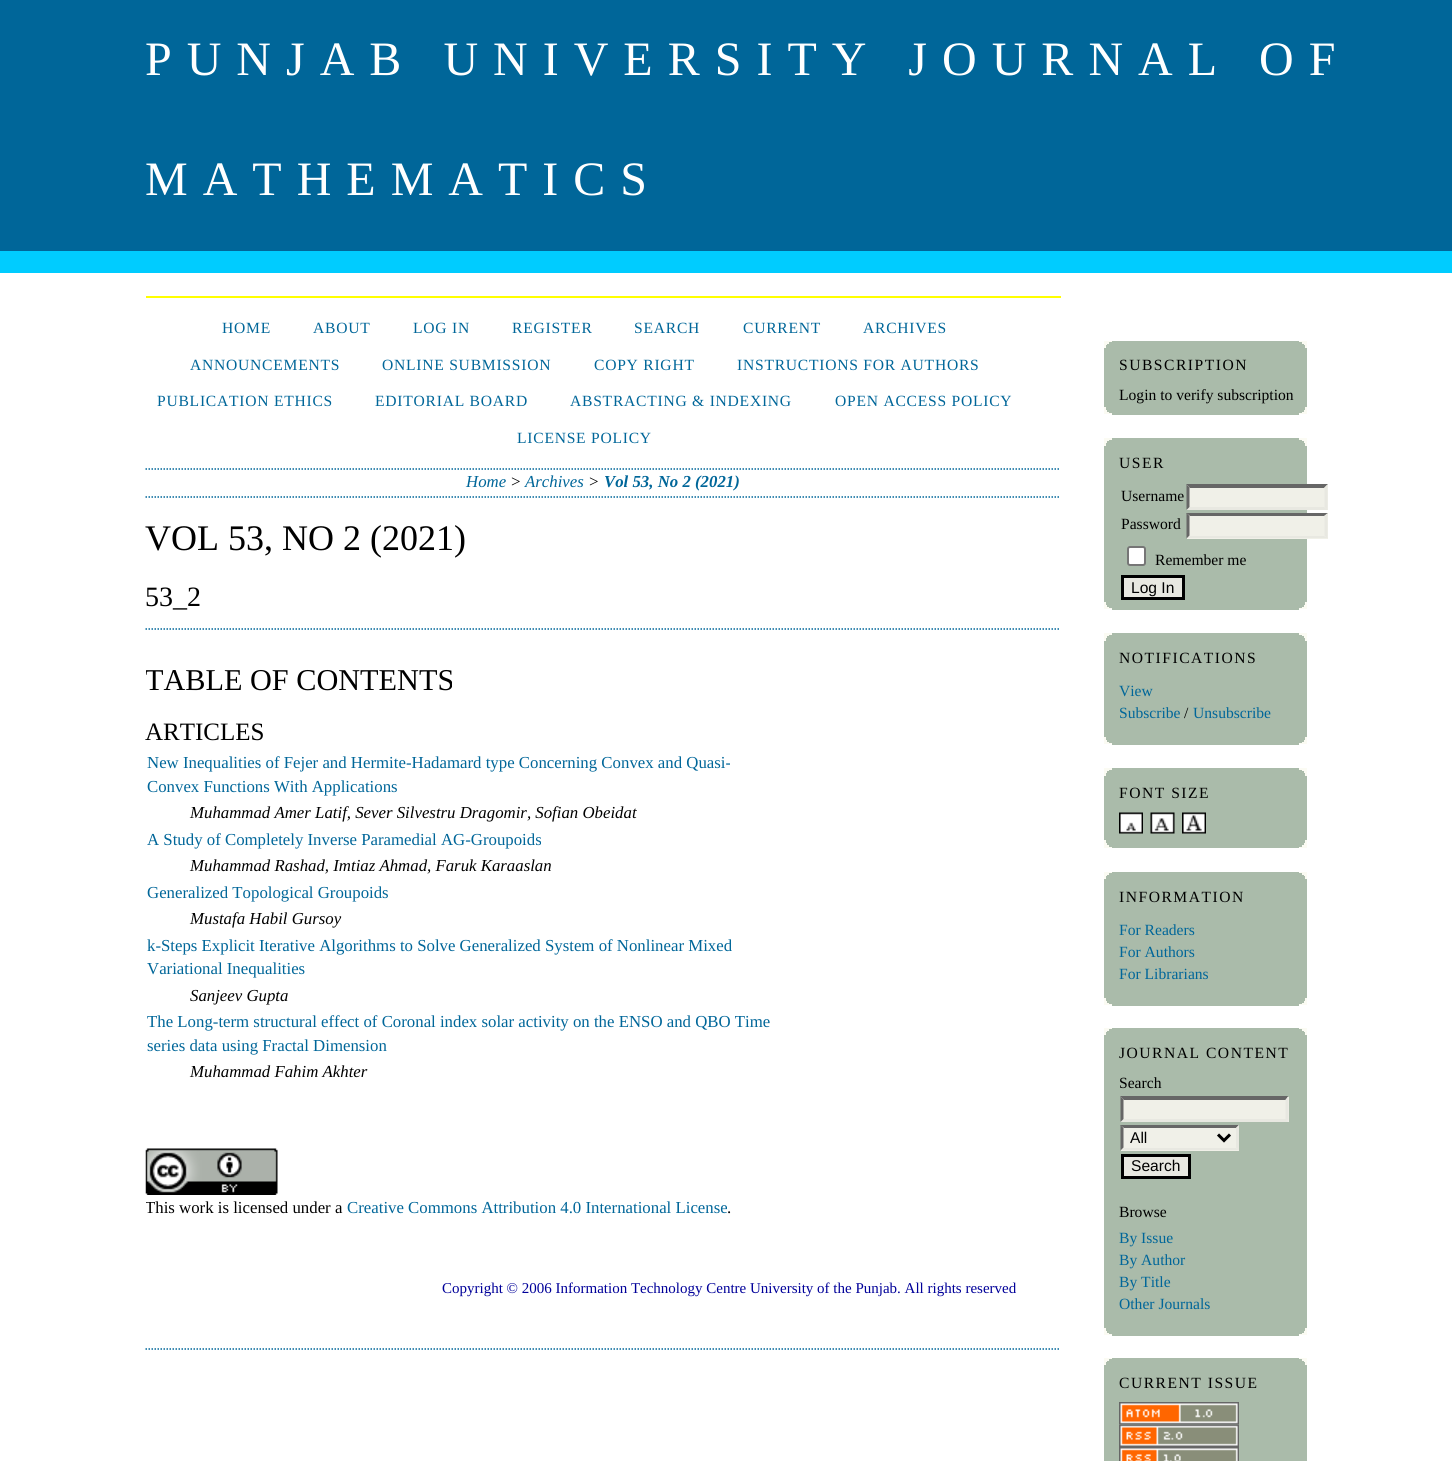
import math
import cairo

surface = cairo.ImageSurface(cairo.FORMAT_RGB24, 1452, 1461)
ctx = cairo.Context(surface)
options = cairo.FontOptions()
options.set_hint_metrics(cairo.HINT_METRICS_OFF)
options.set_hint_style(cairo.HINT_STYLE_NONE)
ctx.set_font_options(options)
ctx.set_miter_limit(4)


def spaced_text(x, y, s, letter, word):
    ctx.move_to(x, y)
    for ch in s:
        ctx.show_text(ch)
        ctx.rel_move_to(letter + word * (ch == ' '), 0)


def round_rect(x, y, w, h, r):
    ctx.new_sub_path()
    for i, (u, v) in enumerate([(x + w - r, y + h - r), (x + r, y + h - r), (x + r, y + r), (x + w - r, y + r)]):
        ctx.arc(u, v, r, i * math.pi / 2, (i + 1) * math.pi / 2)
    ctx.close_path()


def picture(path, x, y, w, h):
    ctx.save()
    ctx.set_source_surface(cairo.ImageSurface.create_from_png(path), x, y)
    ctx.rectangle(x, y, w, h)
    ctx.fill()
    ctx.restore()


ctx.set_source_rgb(1, 1, 1)
ctx.paint()
ctx.set_source_rgb(0, 0.4, 0.6)
ctx.rectangle(0, 0, 1452, 251)
ctx.fill()
ctx.select_font_face("Liberation Serif")
ctx.set_font_size(48)
ctx.set_source_rgb(1, 1, 1)
spaced_text(145, 75, "PUNJAB UNIVERSITY JOURNAL OF", 15, 0)
spaced_text(145, 195, "MATHEMATICS", 15, 0)
ctx.set_source_rgb(0, 0.8, 1)
ctx.rectangle(0, 251, 1452, 22)
ctx.fill()
ctx.set_source_rgb(1, 1, 0)
ctx.rectangle(146, 296, 915, 2)
ctx.fill()
ctx.new_path()
ctx.move_to(145.5, 1349)
ctx.line_to(1060.5, 1349)
ctx.set_source_rgb(0, 0.4, 0.6)
ctx.set_line_width(1.5)
ctx.set_dash([1.5, 1.5])
ctx.stroke()
ctx.new_path()
ctx.move_to(145.5, 469)
ctx.line_to(1060.5, 469)
ctx.stroke()
ctx.set_font_size(15.6)
spaced_text(222, 333, "HOME", 0.75, 0)
spaced_text(313, 333, "ABOUT", 0.75, 0)
spaced_text(413, 333, "LOG IN", 0.75, 0)
spaced_text(512, 333, "REGISTER", 0.75, 0)
spaced_text(634, 333, "SEARCH", 0.75, 0)
spaced_text(743, 333, "CURRENT", 0.75, 0)
spaced_text(863, 333, "ARCHIVES", 0.75, 0)
spaced_text(190, 370, "ANNOUNCEMENTS", 0.75, 0)
spaced_text(382, 370, "ONLINE SUBMISSION", 0.75, 0)
spaced_text(594, 370, "COPY RIGHT", 0.75, 0)
spaced_text(737, 370, "INSTRUCTIONS FOR AUTHORS", 0.75, 0)
spaced_text(157, 406, "PUBLICATION ETHICS", 0.75, 0)
spaced_text(375, 406, "EDITORIAL BOARD", 0.75, 0)
spaced_text(570, 406, "ABSTRACTING & INDEXING", 0.75, 0)
spaced_text(835, 406, "OPEN ACCESS POLICY", 0.75, 0)
spaced_text(517, 443, "LICENSE POLICY", 0.75, 0)
ctx.new_path()
ctx.move_to(145.5, 497)
ctx.line_to(1060.5, 497)
ctx.stroke()
ctx.select_font_face("Liberation Serif", cairo.FONT_SLANT_ITALIC)
ctx.set_font_size(16.8)
ctx.move_to(466, 487)
ctx.show_text("Home")
ctx.set_source_rgb(0, 0, 0)
ctx.move_to(510, 487)
ctx.show_text(">")
ctx.set_source_rgb(0, 0.4, 0.6)
ctx.move_to(525, 487)
ctx.show_text("Archives")
ctx.set_source_rgb(0, 0, 0)
ctx.move_to(588, 487)
ctx.show_text(">")
ctx.select_font_face("Liberation Serif", cairo.FONT_SLANT_ITALIC, cairo.FONT_WEIGHT_BOLD)
ctx.set_source_rgb(0, 0.4, 0.6)
ctx.move_to(604, 487)
ctx.show_text("Vol 53, No 2 (2021)")
ctx.select_font_face("Liberation Serif")
ctx.set_font_size(36)
ctx.set_source_rgb(0, 0, 0)
ctx.move_to(145, 550)
ctx.show_text("VOL 53, NO 2 (2021)")
ctx.set_font_size(28)
ctx.move_to(145, 606)
ctx.show_text("53_2")
ctx.new_path()
ctx.move_to(145.5, 629)
ctx.line_to(1060.5, 629)
ctx.set_source_rgb(0, 0.4, 0.6)
ctx.stroke()
ctx.save()
ctx.rectangle(146, 297, 915, 1052)
ctx.clip()
ctx.set_font_size(30.25)
ctx.set_source_rgb(0, 0, 0)
ctx.move_to(145, 690)
ctx.show_text("TABLE OF CONTENTS")
ctx.restore()
ctx.set_font_size(25)
ctx.set_source_rgb(0, 0, 0)
ctx.move_to(145, 740)
ctx.show_text("ARTICLES")
ctx.set_font_size(16.8)
ctx.set_source_rgb(0, 0.4, 0.6)
ctx.move_to(147, 768)
ctx.show_text("New Inequalities of Fejer and Hermite-Hadamard type Concerning Convex and Quasi-")
ctx.move_to(147, 792)
ctx.show_text("Convex Functions With Applications")
ctx.select_font_face("Liberation Serif", cairo.FONT_SLANT_ITALIC)
ctx.set_source_rgb(0, 0, 0)
ctx.move_to(190, 818)
ctx.show_text("Muhammad Amer Latif, Sever Silvestru Dragomir, Sofian Obeidat")
ctx.select_font_face("Liberation Serif")
ctx.set_source_rgb(0, 0.4, 0.6)
ctx.move_to(147, 845)
ctx.show_text("A Study of Completely Inverse Paramedial AG-Groupoids")
ctx.select_font_face("Liberation Serif", cairo.FONT_SLANT_ITALIC)
ctx.set_source_rgb(0, 0, 0)
ctx.move_to(190, 871)
ctx.show_text("Muhammad Rashad, Imtiaz Ahmad, Faruk Karaaslan")
ctx.select_font_face("Liberation Serif")
ctx.set_source_rgb(0, 0.4, 0.6)
ctx.move_to(147, 898)
ctx.show_text("Generalized Topological Groupoids")
ctx.select_font_face("Liberation Serif", cairo.FONT_SLANT_ITALIC)
ctx.set_source_rgb(0, 0, 0)
ctx.move_to(190, 924)
ctx.show_text("Mustafa Habil Gursoy")
ctx.select_font_face("Liberation Serif")
ctx.set_source_rgb(0, 0.4, 0.6)
ctx.move_to(147, 951)
ctx.show_text("k-Steps Explicit Iterative Algorithms to Solve Generalized System of Nonlinear Mixed")
ctx.move_to(147, 974)
ctx.show_text("Variational Inequalities")
ctx.select_font_face("Liberation Serif", cairo.FONT_SLANT_ITALIC)
ctx.set_source_rgb(0, 0, 0)
ctx.move_to(190, 1001)
ctx.show_text("Sanjeev Gupta")
ctx.select_font_face("Liberation Serif")
ctx.set_source_rgb(0, 0.4, 0.6)
ctx.move_to(147, 1027)
ctx.show_text("The Long-term structural effect of Coronal index solar activity on the ENSO and QBO Time")
ctx.move_to(147, 1051)
ctx.show_text("series data using Fractal Dimension")
ctx.select_font_face("Liberation Serif", cairo.FONT_SLANT_ITALIC)
ctx.set_source_rgb(0, 0, 0)
ctx.move_to(190, 1077)
ctx.show_text("Muhammad Fahim Akhter")
picture("img1.png", 145, 1148, 133, 47)
ctx.save()
ctx.rectangle(146, 297, 915, 1052)
ctx.clip()
ctx.select_font_face("Liberation Serif")
ctx.move_to(145, 1213)
ctx.show_text("This work is licensed under a")
ctx.restore()
ctx.select_font_face("Liberation Serif")
ctx.set_source_rgb(0, 0.4, 0.6)
ctx.move_to(347, 1213)
ctx.show_text("Creative Commons Attribution 4.0 International License")
ctx.set_source_rgb(0, 0, 0)
ctx.move_to(727, 1213)
ctx.show_text(".")
ctx.set_font_size(15)
ctx.set_source_rgb(0, 0, 0.6)
ctx.move_to(442, 1293)
ctx.show_text("Copyright © 2006 Information Technology Centre University of the Punjab. All rights reserved")
ctx.set_source_rgb(0.667, 0.733, 0.667)
ctx.rectangle(1104, 348, 203, 59)
ctx.fill()
ctx.set_source_rgb(0.984, 0.984, 0.953)
ctx.rectangle(1104, 341, 203, 7)
ctx.fill()
ctx.set_source_rgb(0.667, 0.733, 0.667)
ctx.rectangle(1112, 341, 187, 1)
ctx.fill()
ctx.rectangle(1109, 342, 193, 2)
ctx.fill()
ctx.rectangle(1107, 344, 197, 1)
ctx.fill()
ctx.rectangle(1106, 345, 199, 3)
ctx.fill()
ctx.set_font_size(15.6)
ctx.set_source_rgb(0, 0, 0)
spaced_text(1119, 370, "SUBSCRIPTION", 1.5, 0)
ctx.move_to(1119, 400)
ctx.show_text("Login to verify subscription")
ctx.set_source_rgb(0.984, 0.984, 0.953)
ctx.rectangle(1104, 407, 203, 7)
ctx.fill()
ctx.set_source_rgb(0.667, 0.733, 0.667)
ctx.rectangle(1106, 407, 199, 3)
ctx.fill()
ctx.rectangle(1107, 410, 197, 2)
ctx.fill()
ctx.rectangle(1109, 412, 193, 1)
ctx.fill()
ctx.rectangle(1112, 413, 187, 2)
ctx.fill()
ctx.rectangle(1104, 446, 203, 156)
ctx.fill()
ctx.set_source_rgb(0.984, 0.984, 0.953)
ctx.rectangle(1104, 438, 203, 8)
ctx.fill()
ctx.set_source_rgb(0.667, 0.733, 0.667)
ctx.rectangle(1112, 438, 187, 2)
ctx.fill()
ctx.rectangle(1109, 440, 193, 1)
ctx.fill()
ctx.rectangle(1107, 441, 197, 2)
ctx.fill()
ctx.rectangle(1106, 443, 199, 3)
ctx.fill()
ctx.set_source_rgb(0, 0, 0)
spaced_text(1119, 468, "USER", 1.5, 0)
ctx.move_to(1121, 501)
ctx.show_text("Username")
ctx.set_source_rgb(0.941, 0.941, 0.91)
ctx.rectangle(1187, 485, 141, 25)
ctx.fill()
ctx.set_source_rgb(0.4, 0.4, 0.4)
ctx.new_path()
ctx.move_to(1186, 484)
ctx.line_to(1328, 484)
ctx.line_to(1324, 488)
ctx.line_to(1190, 488)
ctx.close_path()
ctx.fill()
ctx.set_source_rgb(0.91, 0.91, 0.882)
ctx.new_path()
ctx.move_to(1327.5, 484.5)
ctx.line_to(1327.5, 510)
ctx.line_to(1324.5, 507)
ctx.line_to(1324.5, 487.5)
ctx.close_path()
ctx.fill()
ctx.new_path()
ctx.move_to(1328, 510)
ctx.line_to(1186, 510)
ctx.line_to(1190, 507)
ctx.line_to(1324, 507)
ctx.close_path()
ctx.fill()
ctx.set_source_rgb(0.4, 0.4, 0.4)
ctx.new_path()
ctx.move_to(1186.5, 510)
ctx.line_to(1186.5, 484.5)
ctx.line_to(1189.5, 487.5)
ctx.line_to(1189.5, 507)
ctx.close_path()
ctx.fill()
ctx.set_source_rgb(0, 0, 0)
ctx.move_to(1121, 529)
ctx.show_text("Password")
ctx.set_source_rgb(0.941, 0.941, 0.91)
ctx.rectangle(1187, 513, 141, 26)
ctx.fill()
ctx.set_source_rgb(0.4, 0.4, 0.4)
ctx.new_path()
ctx.move_to(1186, 513)
ctx.line_to(1328, 513)
ctx.line_to(1324, 516)
ctx.line_to(1190, 516)
ctx.close_path()
ctx.fill()
ctx.set_source_rgb(0.91, 0.91, 0.882)
ctx.new_path()
ctx.move_to(1327.5, 513)
ctx.line_to(1327.5, 538.5)
ctx.line_to(1324.5, 535.5)
ctx.line_to(1324.5, 516)
ctx.close_path()
ctx.fill()
ctx.new_path()
ctx.move_to(1328, 538)
ctx.line_to(1186, 538)
ctx.line_to(1190, 536)
ctx.line_to(1324, 536)
ctx.close_path()
ctx.fill()
ctx.set_source_rgb(0.4, 0.4, 0.4)
ctx.new_path()
ctx.move_to(1186.5, 538.5)
ctx.line_to(1186.5, 513)
ctx.line_to(1189.5, 516)
ctx.line_to(1189.5, 535.5)
ctx.close_path()
ctx.fill()
ctx.set_source_rgb(1, 1, 1)
round_rect(1128, 547, 17, 18, 2)
ctx.fill_preserve()
ctx.set_source_rgb(0.463, 0.463, 0.463)
ctx.set_line_width(2)
ctx.set_dash([])
ctx.stroke()
ctx.set_source_rgb(0, 0, 0)
ctx.move_to(1155, 565)
ctx.show_text("Remember me")
ctx.set_source_rgb(0.91, 0.91, 0.882)
ctx.rectangle(1122.5, 576.5, 61, 22)
ctx.fill_preserve()
ctx.set_source_rgb(0, 0, 0)
ctx.set_line_width(3)
ctx.stroke()
ctx.select_font_face("Liberation Sans")
ctx.move_to(1131, 593)
ctx.show_text("Log In")
ctx.set_source_rgb(0.984, 0.984, 0.953)
ctx.rectangle(1104, 602, 203, 7)
ctx.fill()
ctx.set_source_rgb(0.667, 0.733, 0.667)
ctx.rectangle(1106, 602, 199, 3)
ctx.fill()
ctx.rectangle(1107, 605, 197, 2)
ctx.fill()
ctx.rectangle(1109, 607, 193, 1)
ctx.fill()
ctx.rectangle(1112, 608, 187, 2)
ctx.fill()
ctx.rectangle(1104, 641, 203, 96)
ctx.fill()
ctx.set_source_rgb(0.984, 0.984, 0.953)
ctx.rectangle(1104, 633, 203, 8)
ctx.fill()
ctx.set_source_rgb(0.667, 0.733, 0.667)
ctx.rectangle(1112, 633, 187, 2)
ctx.fill()
ctx.rectangle(1109, 635, 193, 1)
ctx.fill()
ctx.rectangle(1107, 636, 197, 2)
ctx.fill()
ctx.rectangle(1106, 638, 199, 3)
ctx.fill()
ctx.select_font_face("Liberation Serif")
ctx.set_source_rgb(0, 0, 0)
spaced_text(1119, 663, "NOTIFICATIONS", 1.5, 0)
ctx.set_source_rgb(0, 0.4, 0.6)
ctx.move_to(1119, 696)
ctx.show_text("View")
ctx.move_to(1119, 718)
ctx.show_text("Subscribe")
ctx.set_source_rgb(0, 0, 0)
ctx.move_to(1184, 718)
ctx.show_text("/")
ctx.set_source_rgb(0, 0.4, 0.6)
ctx.move_to(1193, 718)
ctx.show_text("Unsubscribe")
ctx.set_source_rgb(0.984, 0.984, 0.953)
ctx.rectangle(1104, 737, 203, 7)
ctx.fill()
ctx.set_source_rgb(0.667, 0.733, 0.667)
ctx.rectangle(1106, 737, 199, 3)
ctx.fill()
ctx.rectangle(1107, 740, 197, 2)
ctx.fill()
ctx.rectangle(1109, 742, 193, 1)
ctx.fill()
ctx.rectangle(1112, 743, 187, 2)
ctx.fill()
ctx.rectangle(1104, 776, 203, 64)
ctx.fill()
ctx.set_source_rgb(0.984, 0.984, 0.953)
ctx.rectangle(1104, 768, 203, 8)
ctx.fill()
ctx.set_source_rgb(0.667, 0.733, 0.667)
ctx.rectangle(1112, 768, 187, 2)
ctx.fill()
ctx.rectangle(1109, 770, 193, 1)
ctx.fill()
ctx.rectangle(1107, 771, 197, 2)
ctx.fill()
ctx.rectangle(1106, 773, 199, 3)
ctx.fill()
ctx.set_source_rgb(0, 0, 0)
spaced_text(1119, 798, "FONT SIZE", 1.5, 0)
picture("img2.png", 1119, 812, 24, 22)
picture("img3.png", 1150, 812, 25, 22)
picture("img4.png", 1182, 812, 24, 22)
ctx.set_source_rgb(0.984, 0.984, 0.953)
ctx.rectangle(1104, 840, 203, 8)
ctx.fill()
ctx.set_source_rgb(0.667, 0.733, 0.667)
ctx.rectangle(1106, 840, 199, 3)
ctx.fill()
ctx.rectangle(1107, 843, 197, 2)
ctx.fill()
ctx.rectangle(1109, 845, 193, 2)
ctx.fill()
ctx.rectangle(1112, 847, 187, 1)
ctx.fill()
ctx.rectangle(1104, 879, 203, 119)
ctx.fill()
ctx.set_source_rgb(0.984, 0.984, 0.953)
ctx.rectangle(1104, 872, 203, 7)
ctx.fill()
ctx.set_source_rgb(0.667, 0.733, 0.667)
ctx.rectangle(1112, 872, 187, 1)
ctx.fill()
ctx.rectangle(1109, 873, 193, 2)
ctx.fill()
ctx.rectangle(1107, 875, 197, 1)
ctx.fill()
ctx.rectangle(1106, 876, 199, 3)
ctx.fill()
ctx.set_source_rgb(0, 0, 0)
spaced_text(1119, 902, "INFORMATION", 1.5, 0)
ctx.set_source_rgb(0, 0.4, 0.6)
ctx.move_to(1119, 935)
ctx.show_text("For Readers")
ctx.move_to(1119, 957)
ctx.show_text("For Authors")
ctx.move_to(1119, 979)
ctx.show_text("For Librarians")
ctx.set_source_rgb(0.984, 0.984, 0.953)
ctx.rectangle(1104, 998, 203, 7)
ctx.fill()
ctx.set_source_rgb(0.667, 0.733, 0.667)
ctx.rectangle(1106, 998, 199, 3)
ctx.fill()
ctx.rectangle(1107, 1001, 197, 2)
ctx.fill()
ctx.rectangle(1109, 1003, 193, 1)
ctx.fill()
ctx.rectangle(1112, 1004, 187, 2)
ctx.fill()
ctx.rectangle(1104, 1035, 203, 293)
ctx.fill()
ctx.set_source_rgb(0.984, 0.984, 0.953)
ctx.rectangle(1104, 1028, 203, 7)
ctx.fill()
ctx.set_source_rgb(0.667, 0.733, 0.667)
ctx.rectangle(1112, 1028, 187, 1)
ctx.fill()
ctx.rectangle(1109, 1029, 193, 2)
ctx.fill()
ctx.rectangle(1107, 1031, 197, 1)
ctx.fill()
ctx.rectangle(1106, 1032, 199, 3)
ctx.fill()
ctx.set_source_rgb(0, 0, 0)
spaced_text(1119, 1058, "JOURNAL CONTENT", 1.5, 0)
ctx.move_to(1119, 1088)
ctx.show_text("Search")
ctx.set_source_rgb(0.941, 0.941, 0.91)
ctx.rectangle(1121, 1097, 168, 25)
ctx.fill()
ctx.set_source_rgb(0.4, 0.4, 0.4)
ctx.new_path()
ctx.move_to(1120, 1096)
ctx.line_to(1288, 1096)
ctx.line_to(1286, 1100)
ctx.line_to(1124, 1100)
ctx.close_path()
ctx.fill()
ctx.set_source_rgb(0.91, 0.91, 0.882)
ctx.new_path()
ctx.move_to(1288.5, 1096.5)
ctx.line_to(1288.5, 1122)
ctx.line_to(1285.5, 1119)
ctx.line_to(1285.5, 1099.5)
ctx.close_path()
ctx.fill()
ctx.new_path()
ctx.move_to(1288, 1122)
ctx.line_to(1120, 1122)
ctx.line_to(1124, 1119)
ctx.line_to(1286, 1119)
ctx.close_path()
ctx.fill()
ctx.set_source_rgb(0.4, 0.4, 0.4)
ctx.new_path()
ctx.move_to(1120.5, 1122)
ctx.line_to(1120.5, 1096.5)
ctx.line_to(1123.5, 1099.5)
ctx.line_to(1123.5, 1119)
ctx.close_path()
ctx.fill()
ctx.set_source_rgb(0.941, 0.941, 0.91)
ctx.rectangle(1121, 1125, 118, 26)
ctx.fill()
ctx.set_source_rgb(0.4, 0.4, 0.4)
ctx.new_path()
ctx.move_to(1120, 1125)
ctx.line_to(1239, 1125)
ctx.line_to(1236, 1128)
ctx.line_to(1124, 1128)
ctx.close_path()
ctx.fill()
ctx.set_source_rgb(0.91, 0.91, 0.882)
ctx.new_path()
ctx.move_to(1239, 1125)
ctx.line_to(1239, 1150.5)
ctx.line_to(1236, 1147.5)
ctx.line_to(1236, 1128)
ctx.close_path()
ctx.fill()
ctx.new_path()
ctx.move_to(1239, 1150)
ctx.line_to(1120, 1150)
ctx.line_to(1124, 1148)
ctx.line_to(1236, 1148)
ctx.close_path()
ctx.fill()
ctx.set_source_rgb(0.4, 0.4, 0.4)
ctx.new_path()
ctx.move_to(1120.5, 1150.5)
ctx.line_to(1120.5, 1125)
ctx.line_to(1123.5, 1128)
ctx.line_to(1123.5, 1147.5)
ctx.close_path()
ctx.fill()
ctx.new_path()
ctx.move_to(1218, 1134.5)
ctx.line_to(1224, 1140.5)
ctx.line_to(1230, 1134.5)
ctx.set_source_rgb(0, 0, 0)
ctx.stroke()
ctx.select_font_face("Liberation Sans")
ctx.move_to(1130, 1143)
ctx.show_text("All")
ctx.set_source_rgb(0.91, 0.91, 0.882)
ctx.rectangle(1122.5, 1155.5, 67, 22)
ctx.fill_preserve()
ctx.set_source_rgb(0, 0, 0)
ctx.stroke()
ctx.move_to(1131, 1171)
ctx.show_text("Search")
ctx.select_font_face("Liberation Serif")
ctx.move_to(1119, 1217)
ctx.show_text("Browse")
ctx.set_source_rgb(0, 0.4, 0.6)
ctx.move_to(1119, 1243)
ctx.show_text("By Issue")
ctx.move_to(1119, 1265)
ctx.show_text("By Author")
ctx.move_to(1119, 1287)
ctx.show_text("By Title")
ctx.move_to(1119, 1309)
ctx.show_text("Other Journals")
ctx.set_source_rgb(0.984, 0.984, 0.953)
ctx.rectangle(1104, 1328, 203, 7)
ctx.fill()
ctx.set_source_rgb(0.667, 0.733, 0.667)
ctx.rectangle(1106, 1328, 199, 3)
ctx.fill()
ctx.rectangle(1107, 1331, 197, 2)
ctx.fill()
ctx.rectangle(1109, 1333, 193, 1)
ctx.fill()
ctx.rectangle(1112, 1334, 187, 2)
ctx.fill()
ctx.rectangle(1104, 1365, 203, 96)
ctx.fill()
ctx.set_source_rgb(0.984, 0.984, 0.953)
ctx.rectangle(1104, 1358, 203, 7)
ctx.fill()
ctx.set_source_rgb(0.667, 0.733, 0.667)
ctx.rectangle(1112, 1358, 187, 1)
ctx.fill()
ctx.rectangle(1109, 1359, 193, 2)
ctx.fill()
ctx.rectangle(1107, 1361, 197, 1)
ctx.fill()
ctx.rectangle(1106, 1362, 199, 3)
ctx.fill()
ctx.set_source_rgb(0, 0, 0)
spaced_text(1119, 1388, "CURRENT ISSUE", 1.5, 0)
picture("img5.png", 1119, 1402, 120, 23)
picture("img6.png", 1119, 1424, 120, 23)
picture("img7.png", 1119, 1447, 120, 14)
surface.write_to_png("page.png")
